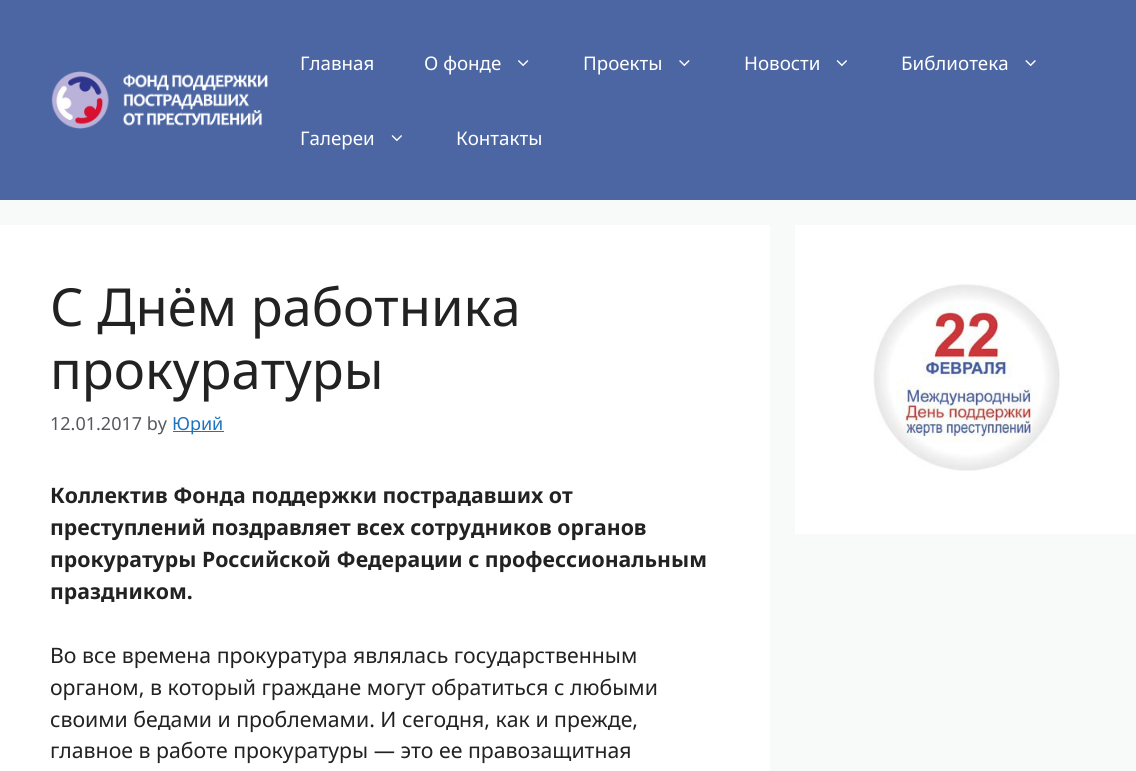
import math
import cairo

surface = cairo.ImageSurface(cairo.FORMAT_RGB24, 1136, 771)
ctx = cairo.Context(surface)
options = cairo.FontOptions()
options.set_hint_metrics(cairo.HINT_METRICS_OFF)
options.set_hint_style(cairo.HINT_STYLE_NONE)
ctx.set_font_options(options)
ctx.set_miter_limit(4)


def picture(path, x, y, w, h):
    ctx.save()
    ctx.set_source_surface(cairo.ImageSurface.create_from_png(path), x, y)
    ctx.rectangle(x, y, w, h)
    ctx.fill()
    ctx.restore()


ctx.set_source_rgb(0.969, 0.973, 0.976)
ctx.paint()
ctx.set_source_rgb(0.298, 0.4, 0.643)
ctx.rectangle(0, 0, 1136, 200)
ctx.fill()
picture("img1.png", 51, 71, 217, 58)
ctx.select_font_face("Noto Sans")
ctx.set_font_size(18.75)
ctx.set_source_rgb(1, 1, 1)
ctx.move_to(300, 70)
ctx.show_text("Главная")
ctx.move_to(424, 70)
ctx.show_text("О фонде")
picture("img2.png", 518, 60, 11, 7)
ctx.move_to(583, 70)
ctx.show_text("Проекты")
picture("img3.png", 679, 60, 11, 7)
ctx.move_to(744, 70)
ctx.show_text("Новости")
picture("img4.png", 836, 60, 11, 7)
ctx.move_to(901, 70)
ctx.show_text("Библиотека")
picture("img5.png", 1025, 60, 11, 7)
ctx.move_to(300, 145)
ctx.show_text("Галереи")
picture("img4.png", 391, 135, 11, 7)
ctx.move_to(456, 145)
ctx.show_text("Контакты")
ctx.rectangle(0, 225, 770, 546)
ctx.fill()
ctx.set_font_size(52.5)
ctx.set_source_rgb(0.133, 0.133, 0.133)
ctx.move_to(50, 326)
ctx.show_text("С Днём работника")
ctx.move_to(50, 389)
ctx.show_text("прокуратуры")
ctx.set_font_size(18)
ctx.set_source_rgb(0.341, 0.341, 0.376)
ctx.move_to(50, 430)
ctx.show_text("12.01.2017 by")
ctx.set_source_rgb(0.118, 0.451, 0.745)
ctx.rectangle(173, 431, 51, 1)
ctx.fill()
ctx.move_to(172, 430)
ctx.show_text("Юрий")
ctx.select_font_face("Noto Sans", cairo.FONT_SLANT_NORMAL, cairo.FONT_WEIGHT_BOLD)
ctx.set_font_size(21.25)
ctx.set_source_rgb(0.133, 0.133, 0.133)
ctx.move_to(50, 503)
ctx.show_text("Коллектив Фонда поддержки пострадавших от")
ctx.move_to(50, 535)
ctx.show_text("преступлений поздравляет всех сотрудников органов")
ctx.move_to(50, 567)
ctx.show_text("прокуратуры Российской Федерации с профессиональным")
ctx.move_to(50, 599)
ctx.show_text("праздником.")
ctx.select_font_face("Noto Sans")
ctx.move_to(50, 663)
ctx.show_text("Во все времена прокуратура являлась государственным")
ctx.move_to(50, 695)
ctx.show_text("органом, в который граждане могут обратиться с любыми")
ctx.move_to(50, 727)
ctx.show_text("своими бедами и проблемами. И сегодня, как и прежде,")
ctx.move_to(50, 758)
ctx.show_text("главное в работе прокуратуры — это ее правозащитная")
ctx.set_source_rgb(1, 1, 1)
ctx.rectangle(795, 225, 341, 309)
ctx.fill()
picture("img6.png", 873, 284, 187, 187)
surface.write_to_png("page.png")
